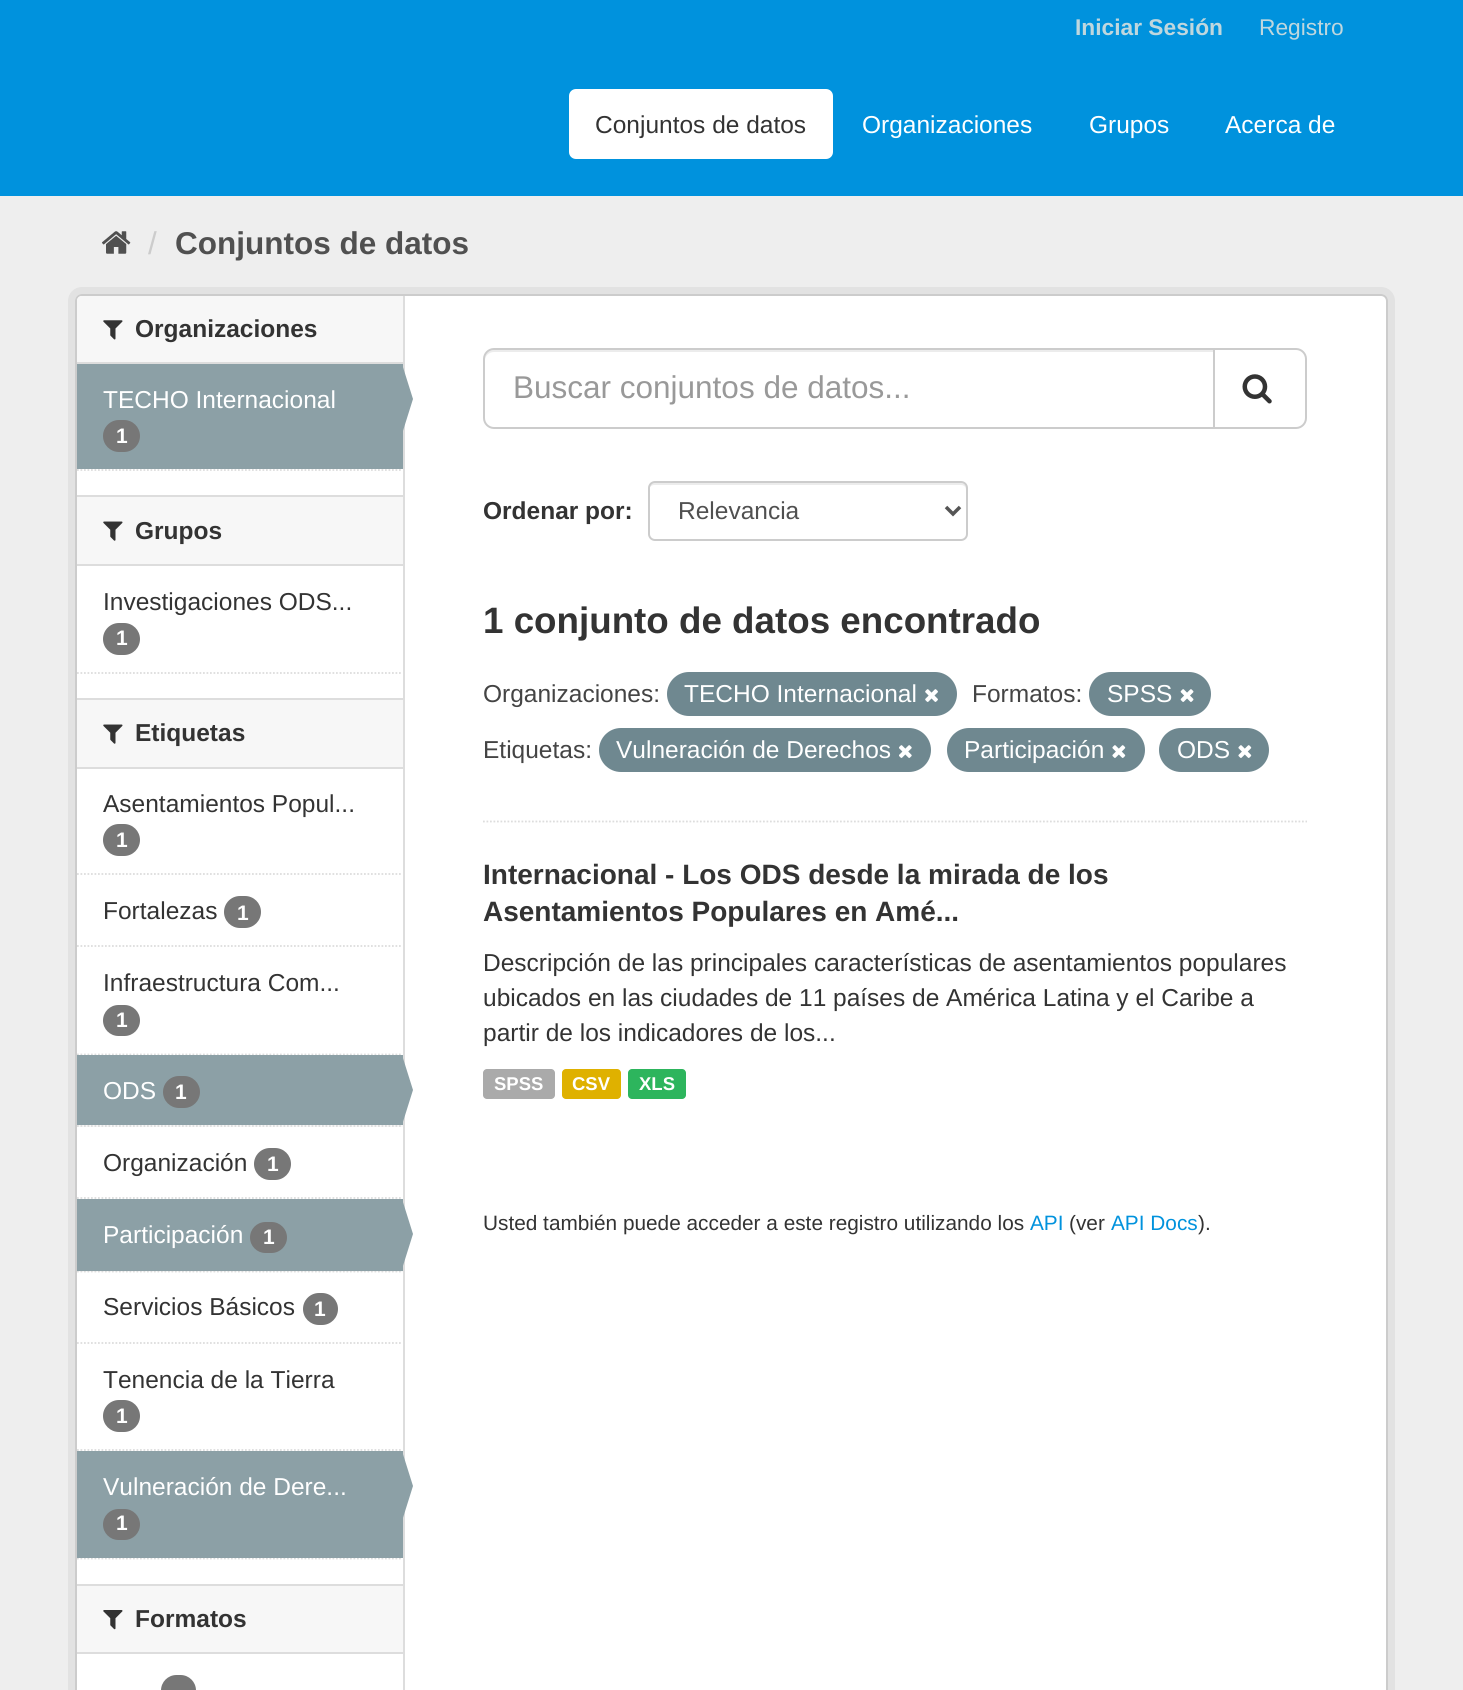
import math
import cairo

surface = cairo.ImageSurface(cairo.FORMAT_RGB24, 1463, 1690)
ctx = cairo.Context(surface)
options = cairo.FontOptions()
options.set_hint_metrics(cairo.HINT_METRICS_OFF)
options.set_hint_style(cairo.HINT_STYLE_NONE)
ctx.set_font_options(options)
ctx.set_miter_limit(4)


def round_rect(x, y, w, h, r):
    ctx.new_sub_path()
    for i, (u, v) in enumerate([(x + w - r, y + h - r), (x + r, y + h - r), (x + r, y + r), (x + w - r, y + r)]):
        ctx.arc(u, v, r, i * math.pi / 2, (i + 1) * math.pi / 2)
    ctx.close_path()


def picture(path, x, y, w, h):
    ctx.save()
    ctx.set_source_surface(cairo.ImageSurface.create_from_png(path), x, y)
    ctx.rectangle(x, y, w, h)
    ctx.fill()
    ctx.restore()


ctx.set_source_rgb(0, 0.573, 0.867)
ctx.paint()
ctx.select_font_face("Liberation Sans", cairo.FONT_SLANT_NORMAL, cairo.FONT_WEIGHT_BOLD)
ctx.set_font_size(22.75)
ctx.set_source_rgb(0.749, 0.843, 0.871)
ctx.move_to(1075, 35)
ctx.show_text("Iniciar Sesión")
ctx.select_font_face("Liberation Sans")
ctx.move_to(1259, 35)
ctx.show_text("Registro")
ctx.set_source_rgb(1, 1, 1)
round_rect(569, 89, 264, 70, 7)
ctx.fill()
ctx.set_font_size(24.5)
ctx.set_source_rgb(0.2, 0.2, 0.2)
ctx.move_to(595, 133)
ctx.show_text("Conjuntos de datos")
ctx.set_source_rgb(1, 1, 1)
ctx.move_to(862, 133)
ctx.show_text("Organizaciones")
ctx.move_to(1089, 133)
ctx.show_text("Grupos")
ctx.move_to(1225, 133)
ctx.show_text("Acerca de")
ctx.set_source_rgb(0.933, 0.933, 0.933)
ctx.rectangle(0, 196, 1463, 1494)
ctx.fill()
picture("img1.png", 102, 231, 29, 23)
ctx.set_font_size(31.5)
ctx.set_source_rgb(0.8, 0.8, 0.8)
ctx.move_to(148, 254)
ctx.show_text("/")
ctx.select_font_face("Liberation Sans", cairo.FONT_SLANT_NORMAL, cairo.FONT_WEIGHT_BOLD)
ctx.set_source_rgb(0.314, 0.314, 0.314)
ctx.move_to(175, 254)
ctx.show_text("Conjuntos de datos")
round_rect(71.5, 290.5, 1320, 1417, 10.5)
ctx.set_source_rgb(0.886, 0.886, 0.886)
ctx.set_line_width(7)
ctx.stroke()
ctx.set_source_rgb(1, 1, 1)
round_rect(76, 295, 1311, 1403, 6)
ctx.fill_preserve()
ctx.set_source_rgb(0.8, 0.8, 0.8)
ctx.set_line_width(2)
ctx.stroke()
ctx.set_source_rgb(0.965, 0.965, 0.965)
ctx.new_path()
ctx.move_to(82, 296)
ctx.line_to(403, 296)
ctx.line_to(403, 364)
ctx.line_to(77, 364)
ctx.line_to(77, 301)
ctx.curve_to(77, 298, 79, 296, 82, 296)
ctx.close_path()
ctx.fill()
ctx.set_source_rgb(0.867, 0.867, 0.867)
ctx.rectangle(77, 362, 326, 2)
ctx.fill()
picture("img2.png", 103, 320, 20, 20)
ctx.set_font_size(24.5)
ctx.set_source_rgb(0.2, 0.2, 0.2)
ctx.move_to(135, 337)
ctx.show_text("Organizaciones")
ctx.set_source_rgb(0.549, 0.627, 0.651)
ctx.rectangle(77, 364, 326, 105)
ctx.fill()
ctx.select_font_face("Liberation Sans")
ctx.set_source_rgb(1, 1, 1)
ctx.move_to(103, 408)
ctx.show_text("TECHO Internacional")
ctx.set_source_rgb(0.867, 0.867, 0.867)
ctx.rectangle(403, 296, 2, 1394)
ctx.fill()
ctx.set_source_rgb(0.549, 0.627, 0.651)
ctx.new_path()
ctx.move_to(402, 434)
ctx.line_to(402, 364)
ctx.line_to(413, 399)
ctx.close_path()
ctx.fill()
ctx.set_source_rgb(0.467, 0.467, 0.467)
round_rect(103, 420, 37, 32, 16)
ctx.fill()
ctx.select_font_face("Liberation Sans", cairo.FONT_SLANT_NORMAL, cairo.FONT_WEIGHT_BOLD)
ctx.set_font_size(21)
ctx.set_source_rgb(1, 1, 1)
ctx.move_to(116, 443)
ctx.show_text("1")
ctx.new_path()
ctx.move_to(77, 470)
ctx.line_to(402.5, 470)
ctx.set_source_rgb(0.867, 0.867, 0.867)
ctx.set_line_width(1.8)
ctx.set_dash([1.75, 1.75])
ctx.stroke()
ctx.set_source_rgb(0.965, 0.965, 0.965)
ctx.rectangle(77, 497, 326, 67)
ctx.fill()
ctx.set_source_rgb(0.867, 0.867, 0.867)
ctx.rectangle(77, 495, 326, 2)
ctx.fill()
ctx.rectangle(77, 564, 326, 2)
ctx.fill()
picture("img3.png", 103, 521, 20, 20)
ctx.set_font_size(24.5)
ctx.set_source_rgb(0.2, 0.2, 0.2)
ctx.move_to(135, 539)
ctx.show_text("Grupos")
ctx.select_font_face("Liberation Sans")
ctx.move_to(103, 610)
ctx.show_text("Investigaciones ODS...")
ctx.set_source_rgb(0.467, 0.467, 0.467)
round_rect(103, 623, 37, 32, 16)
ctx.fill()
ctx.select_font_face("Liberation Sans", cairo.FONT_SLANT_NORMAL, cairo.FONT_WEIGHT_BOLD)
ctx.set_font_size(21)
ctx.set_source_rgb(1, 1, 1)
ctx.move_to(116, 645)
ctx.show_text("1")
ctx.new_path()
ctx.move_to(77, 673)
ctx.line_to(402.5, 673)
ctx.set_source_rgb(0.867, 0.867, 0.867)
ctx.stroke()
ctx.set_source_rgb(0.965, 0.965, 0.965)
ctx.rectangle(77, 700, 326, 67)
ctx.fill()
ctx.set_source_rgb(0.867, 0.867, 0.867)
ctx.rectangle(77, 698, 326, 2)
ctx.fill()
ctx.rectangle(77, 767, 326, 2)
ctx.fill()
picture("img3.png", 103, 724, 20, 20)
ctx.set_font_size(24.5)
ctx.set_source_rgb(0.2, 0.2, 0.2)
ctx.move_to(135, 741)
ctx.show_text("Etiquetas")
ctx.new_path()
ctx.move_to(77, 874)
ctx.line_to(402.5, 874)
ctx.set_source_rgb(0.867, 0.867, 0.867)
ctx.stroke()
ctx.select_font_face("Liberation Sans")
ctx.set_source_rgb(0.2, 0.2, 0.2)
ctx.move_to(103, 812)
ctx.show_text("Asentamientos Popul...")
ctx.set_source_rgb(0.467, 0.467, 0.467)
round_rect(103, 824, 37, 32, 16)
ctx.fill()
ctx.select_font_face("Liberation Sans", cairo.FONT_SLANT_NORMAL, cairo.FONT_WEIGHT_BOLD)
ctx.set_font_size(21)
ctx.set_source_rgb(1, 1, 1)
ctx.move_to(116, 847)
ctx.show_text("1")
ctx.new_path()
ctx.move_to(77, 946)
ctx.line_to(402.5, 946)
ctx.set_source_rgb(0.867, 0.867, 0.867)
ctx.stroke()
ctx.select_font_face("Liberation Sans")
ctx.set_font_size(24.5)
ctx.set_source_rgb(0.2, 0.2, 0.2)
ctx.move_to(103, 919)
ctx.show_text("Fortalezas")
ctx.set_source_rgb(0.467, 0.467, 0.467)
round_rect(224, 896, 37, 32, 16)
ctx.fill()
ctx.select_font_face("Liberation Sans", cairo.FONT_SLANT_NORMAL, cairo.FONT_WEIGHT_BOLD)
ctx.set_font_size(21)
ctx.set_source_rgb(1, 1, 1)
ctx.move_to(237, 920)
ctx.show_text("1")
ctx.new_path()
ctx.move_to(77, 1054.5)
ctx.line_to(402.5, 1054.5)
ctx.set_source_rgb(0.867, 0.867, 0.867)
ctx.stroke()
ctx.select_font_face("Liberation Sans")
ctx.set_font_size(24.5)
ctx.set_source_rgb(0.2, 0.2, 0.2)
ctx.move_to(103, 991)
ctx.show_text("Infraestructura Com...")
ctx.set_source_rgb(0.467, 0.467, 0.467)
round_rect(103, 1005, 37, 31, 15.5)
ctx.fill()
ctx.select_font_face("Liberation Sans", cairo.FONT_SLANT_NORMAL, cairo.FONT_WEIGHT_BOLD)
ctx.set_font_size(21)
ctx.set_source_rgb(1, 1, 1)
ctx.move_to(116, 1027)
ctx.show_text("1")
ctx.set_source_rgb(0.965, 0.965, 0.965)
ctx.rectangle(77, 1125, 326, 2)
ctx.fill()
ctx.new_path()
ctx.move_to(77, 1126)
ctx.line_to(402.5, 1126)
ctx.set_source_rgb(0.867, 0.867, 0.867)
ctx.stroke()
ctx.set_source_rgb(0.549, 0.627, 0.651)
ctx.rectangle(77, 1055, 326, 70)
ctx.fill()
ctx.select_font_face("Liberation Sans")
ctx.set_font_size(24.5)
ctx.set_source_rgb(1, 1, 1)
ctx.move_to(103, 1099)
ctx.show_text("ODS")
ctx.set_source_rgb(0.467, 0.467, 0.467)
round_rect(163, 1076, 37, 32, 16)
ctx.fill()
ctx.select_font_face("Liberation Sans", cairo.FONT_SLANT_NORMAL, cairo.FONT_WEIGHT_BOLD)
ctx.set_font_size(21)
ctx.set_source_rgb(1, 1, 1)
ctx.move_to(175, 1099)
ctx.show_text("1")
ctx.set_source_rgb(0.549, 0.627, 0.651)
ctx.new_path()
ctx.move_to(402, 1125)
ctx.line_to(402, 1055)
ctx.line_to(413, 1090)
ctx.close_path()
ctx.fill()
ctx.new_path()
ctx.move_to(77, 1198)
ctx.line_to(402.5, 1198)
ctx.set_source_rgb(0.867, 0.867, 0.867)
ctx.stroke()
ctx.select_font_face("Liberation Sans")
ctx.set_font_size(24.5)
ctx.set_source_rgb(0.2, 0.2, 0.2)
ctx.move_to(103, 1171)
ctx.show_text("Organización")
ctx.set_source_rgb(0.467, 0.467, 0.467)
round_rect(254, 1148, 37, 32, 16)
ctx.fill()
ctx.select_font_face("Liberation Sans", cairo.FONT_SLANT_NORMAL, cairo.FONT_WEIGHT_BOLD)
ctx.set_font_size(21)
ctx.set_source_rgb(1, 1, 1)
ctx.move_to(267, 1171)
ctx.show_text("1")
ctx.set_source_rgb(0.965, 0.965, 0.965)
ctx.rectangle(78, 1271, 325, 1)
ctx.fill()
ctx.new_path()
ctx.move_to(77, 1271.5)
ctx.line_to(402.5, 1271.5)
ctx.set_source_rgb(0.867, 0.867, 0.867)
ctx.stroke()
ctx.set_source_rgb(0.549, 0.627, 0.651)
ctx.rectangle(77, 1199, 326, 72)
ctx.fill()
ctx.select_font_face("Liberation Sans")
ctx.set_font_size(24.5)
ctx.set_source_rgb(1, 1, 1)
ctx.move_to(103, 1243)
ctx.show_text("Participación")
ctx.set_source_rgb(0.467, 0.467, 0.467)
round_rect(250, 1222, 37, 31, 15.5)
ctx.fill()
ctx.select_font_face("Liberation Sans", cairo.FONT_SLANT_NORMAL, cairo.FONT_WEIGHT_BOLD)
ctx.set_font_size(21)
ctx.set_source_rgb(1, 1, 1)
ctx.move_to(263, 1244)
ctx.show_text("1")
ctx.set_source_rgb(0.549, 0.627, 0.651)
ctx.new_path()
ctx.move_to(402, 1269)
ctx.line_to(402, 1199)
ctx.line_to(413, 1234)
ctx.close_path()
ctx.fill()
ctx.new_path()
ctx.move_to(77, 1343)
ctx.line_to(402.5, 1343)
ctx.set_source_rgb(0.867, 0.867, 0.867)
ctx.stroke()
ctx.select_font_face("Liberation Sans")
ctx.set_font_size(24.5)
ctx.set_source_rgb(0.2, 0.2, 0.2)
ctx.move_to(103, 1315)
ctx.show_text("Servicios Básicos")
ctx.set_source_rgb(0.467, 0.467, 0.467)
round_rect(303, 1293, 35, 32, 16)
ctx.fill()
ctx.select_font_face("Liberation Sans", cairo.FONT_SLANT_NORMAL, cairo.FONT_WEIGHT_BOLD)
ctx.set_font_size(21)
ctx.set_source_rgb(1, 1, 1)
ctx.move_to(314, 1316)
ctx.show_text("1")
ctx.new_path()
ctx.move_to(77, 1450)
ctx.line_to(402.5, 1450)
ctx.set_source_rgb(0.867, 0.867, 0.867)
ctx.stroke()
ctx.select_font_face("Liberation Sans")
ctx.set_font_size(24.5)
ctx.set_source_rgb(0.2, 0.2, 0.2)
ctx.move_to(103, 1388)
ctx.show_text("Tenencia de la Tierra")
ctx.set_source_rgb(0.467, 0.467, 0.467)
round_rect(103, 1400, 37, 32, 16)
ctx.fill()
ctx.select_font_face("Liberation Sans", cairo.FONT_SLANT_NORMAL, cairo.FONT_WEIGHT_BOLD)
ctx.set_font_size(21)
ctx.set_source_rgb(1, 1, 1)
ctx.move_to(116, 1423)
ctx.show_text("1")
ctx.new_path()
ctx.move_to(77, 1558.5)
ctx.line_to(402.5, 1558.5)
ctx.set_source_rgb(0.867, 0.867, 0.867)
ctx.stroke()
ctx.set_source_rgb(0.549, 0.627, 0.651)
ctx.rectangle(77, 1451, 326, 107)
ctx.fill()
ctx.select_font_face("Liberation Sans")
ctx.set_font_size(24.5)
ctx.set_source_rgb(1, 1, 1)
ctx.move_to(103, 1495)
ctx.show_text("Vulneración de Dere...")
ctx.set_source_rgb(0.549, 0.627, 0.651)
ctx.new_path()
ctx.move_to(402, 1521)
ctx.line_to(402, 1451)
ctx.line_to(413, 1486)
ctx.close_path()
ctx.fill()
ctx.set_source_rgb(0.467, 0.467, 0.467)
round_rect(103, 1509, 37, 31, 15.5)
ctx.fill()
ctx.select_font_face("Liberation Sans", cairo.FONT_SLANT_NORMAL, cairo.FONT_WEIGHT_BOLD)
ctx.set_font_size(21)
ctx.set_source_rgb(1, 1, 1)
ctx.move_to(116, 1530)
ctx.show_text("1")
ctx.set_source_rgb(0.965, 0.965, 0.965)
ctx.rectangle(77, 1586, 326, 66)
ctx.fill()
ctx.set_source_rgb(0.867, 0.867, 0.867)
ctx.rectangle(77, 1584, 326, 2)
ctx.fill()
ctx.rectangle(77, 1652, 326, 2)
ctx.fill()
picture("img4.png", 103, 1610, 20, 20)
ctx.set_font_size(24.5)
ctx.set_source_rgb(0.2, 0.2, 0.2)
ctx.move_to(135, 1627)
ctx.show_text("Formatos")
ctx.set_source_rgb(0.467, 0.467, 0.467)
round_rect(161, 1675, 35, 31, 15.5)
ctx.fill()
ctx.new_path()
ctx.move_to(483, 821.5)
ctx.line_to(1307, 821.5)
ctx.set_source_rgb(0.867, 0.867, 0.867)
ctx.stroke()
ctx.set_source_rgb(0.925, 0.925, 0.925)
ctx.new_path()
ctx.move_to(494, 352)
ctx.line_to(1213, 352)
ctx.line_to(1213, 350)
ctx.line_to(494, 350)
ctx.curve_to(489, 350, 485, 354, 485, 359)
ctx.line_to(485, 360)
ctx.curve_to(485, 356, 489, 352, 494, 352)
ctx.close_path()
ctx.fill()
ctx.new_path()
ctx.move_to(494, 349)
ctx.line_to(1214, 349)
ctx.line_to(1214, 428)
ctx.line_to(494, 428)
ctx.curve_to(488.5, 428, 484, 423.5, 484, 418)
ctx.line_to(484, 359)
ctx.curve_to(484, 353.5, 488.5, 349, 494, 349)
ctx.close_path()
ctx.set_source_rgb(0.8, 0.8, 0.8)
ctx.set_line_width(2)
ctx.set_dash([])
ctx.stroke()
ctx.select_font_face("Liberation Sans")
ctx.set_font_size(31.5)
ctx.set_source_rgb(0.6, 0.6, 0.6)
ctx.move_to(513, 398)
ctx.show_text("Buscar conjuntos de datos...")
ctx.set_source_rgb(1, 1, 1)
ctx.new_path()
ctx.move_to(1214, 349)
ctx.line_to(1296, 349)
ctx.curve_to(1301.5, 349, 1306, 353.5, 1306, 359)
ctx.line_to(1306, 418)
ctx.curve_to(1306, 423.5, 1301.5, 428, 1296, 428)
ctx.line_to(1214, 428)
ctx.close_path()
ctx.fill_preserve()
ctx.set_source_rgb(0.8, 0.8, 0.8)
ctx.stroke()
picture("img5.png", 1242, 374, 30, 30)
ctx.select_font_face("Liberation Sans", cairo.FONT_SLANT_NORMAL, cairo.FONT_WEIGHT_BOLD)
ctx.set_font_size(24.5)
ctx.set_source_rgb(0.2, 0.2, 0.2)
ctx.move_to(483, 519)
ctx.show_text("Ordenar por:")
ctx.set_source_rgb(0.925, 0.925, 0.925)
ctx.new_path()
ctx.move_to(654, 485)
ctx.line_to(961, 485)
ctx.curve_to(964, 485, 966, 487, 966, 490)
ctx.line_to(966, 488)
ctx.curve_to(966, 485, 964, 483, 961, 483)
ctx.line_to(654, 483)
ctx.curve_to(651, 483, 649, 485, 649, 488)
ctx.line_to(649, 490)
ctx.curve_to(649, 487, 652, 485, 654, 485)
ctx.close_path()
ctx.fill()
round_rect(649, 482, 318, 58, 6)
ctx.set_source_rgb(0.8, 0.8, 0.8)
ctx.stroke()
ctx.new_path()
ctx.move_to(946, 507)
ctx.line_to(953, 514)
ctx.line_to(960, 507)
ctx.set_source_rgb(0.333, 0.333, 0.333)
ctx.set_line_width(3.5)
ctx.stroke()
ctx.select_font_face("Liberation Sans")
ctx.set_source_rgb(0.314, 0.314, 0.314)
ctx.move_to(678, 519)
ctx.show_text("Relevancia")
ctx.select_font_face("Liberation Sans", cairo.FONT_SLANT_NORMAL, cairo.FONT_WEIGHT_BOLD)
ctx.set_font_size(36.75)
ctx.set_source_rgb(0.2, 0.2, 0.2)
ctx.move_to(483, 633)
ctx.show_text("1 conjunto de datos encontrado")
ctx.select_font_face("Liberation Sans")
ctx.set_font_size(24.5)
ctx.set_source_rgb(0.267, 0.267, 0.267)
ctx.move_to(483, 702)
ctx.show_text("Organizaciones:")
ctx.set_source_rgb(0.435, 0.533, 0.565)
round_rect(667, 672, 290, 44, 22)
ctx.fill()
ctx.set_source_rgb(1, 1, 1)
ctx.move_to(684, 702)
ctx.show_text("TECHO Internacional")
picture("img6.png", 925, 689, 13, 13)
ctx.set_source_rgb(0.267, 0.267, 0.267)
ctx.move_to(972, 702)
ctx.show_text("Formatos:")
ctx.set_source_rgb(0.435, 0.533, 0.565)
round_rect(1089, 672, 122, 44, 22)
ctx.fill()
ctx.set_source_rgb(1, 1, 1)
ctx.move_to(1107, 702)
ctx.show_text("SPSS")
picture("img7.png", 1180, 689, 14, 13)
ctx.set_source_rgb(0.267, 0.267, 0.267)
ctx.move_to(483, 758)
ctx.show_text("Etiquetas:")
ctx.set_source_rgb(0.435, 0.533, 0.565)
round_rect(599, 728, 332, 44, 22)
ctx.fill()
ctx.set_source_rgb(1, 1, 1)
ctx.move_to(616, 758)
ctx.show_text("Vulneración de Derechos")
picture("img8.png", 899, 745, 13, 13)
ctx.set_source_rgb(0.435, 0.533, 0.565)
round_rect(947, 728, 198, 44, 22)
ctx.fill()
ctx.set_source_rgb(1, 1, 1)
ctx.move_to(964, 758)
ctx.show_text("Participación")
picture("img9.png", 1112, 745, 14, 13)
ctx.set_source_rgb(0.435, 0.533, 0.565)
round_rect(1159, 728, 110, 44, 22)
ctx.fill()
ctx.set_source_rgb(1, 1, 1)
ctx.move_to(1177, 758)
ctx.show_text("ODS")
picture("img9.png", 1238, 745, 14, 13)
ctx.select_font_face("Liberation Sans", cairo.FONT_SLANT_NORMAL, cairo.FONT_WEIGHT_BOLD)
ctx.set_font_size(28)
ctx.set_source_rgb(0.2, 0.2, 0.2)
ctx.move_to(483, 884)
ctx.show_text("Internacional - Los ODS desde la mirada de los")
ctx.move_to(483, 921)
ctx.show_text("Asentamientos Populares en Amé...")
ctx.select_font_face("Liberation Sans")
ctx.set_font_size(24.5)
ctx.move_to(483, 971)
ctx.show_text("Descripción de las principales características de asentamientos populares")
ctx.move_to(483, 1006)
ctx.show_text("ubicados en las ciudades de 11 países de América Latina y el Caribe a")
ctx.move_to(483, 1041)
ctx.show_text("partir de los indicadores de los...")
ctx.set_source_rgb(0.667, 0.667, 0.667)
round_rect(483, 1069, 72, 30, 4)
ctx.fill()
ctx.select_font_face("Liberation Sans", cairo.FONT_SLANT_NORMAL, cairo.FONT_WEIGHT_BOLD)
ctx.set_font_size(18.5)
ctx.set_source_rgb(1, 1, 1)
ctx.move_to(494, 1090)
ctx.show_text("SPSS")
ctx.set_source_rgb(0.875, 0.694, 0)
round_rect(562, 1069, 59, 30, 4)
ctx.fill()
ctx.set_source_rgb(1, 1, 1)
ctx.move_to(572, 1090)
ctx.show_text("CSV")
ctx.set_source_rgb(0.176, 0.71, 0.365)
round_rect(628, 1069, 58, 30, 4)
ctx.fill()
ctx.set_source_rgb(1, 1, 1)
ctx.move_to(639, 1090)
ctx.show_text("XLS")
ctx.select_font_face("Liberation Sans")
ctx.set_font_size(20.8)
ctx.set_source_rgb(0.2, 0.2, 0.2)
ctx.move_to(483, 1230)
ctx.show_text("Usted también puede acceder a este registro utilizando los")
ctx.set_source_rgb(0, 0.573, 0.867)
ctx.move_to(1030, 1230)
ctx.show_text("API")
ctx.set_source_rgb(0.2, 0.2, 0.2)
ctx.move_to(1069, 1230)
ctx.show_text("(ver")
ctx.set_source_rgb(0, 0.573, 0.867)
ctx.move_to(1111, 1230)
ctx.show_text("API Docs")
ctx.set_source_rgb(0.2, 0.2, 0.2)
ctx.move_to(1198, 1230)
ctx.show_text(").")
surface.write_to_png("page.png")
